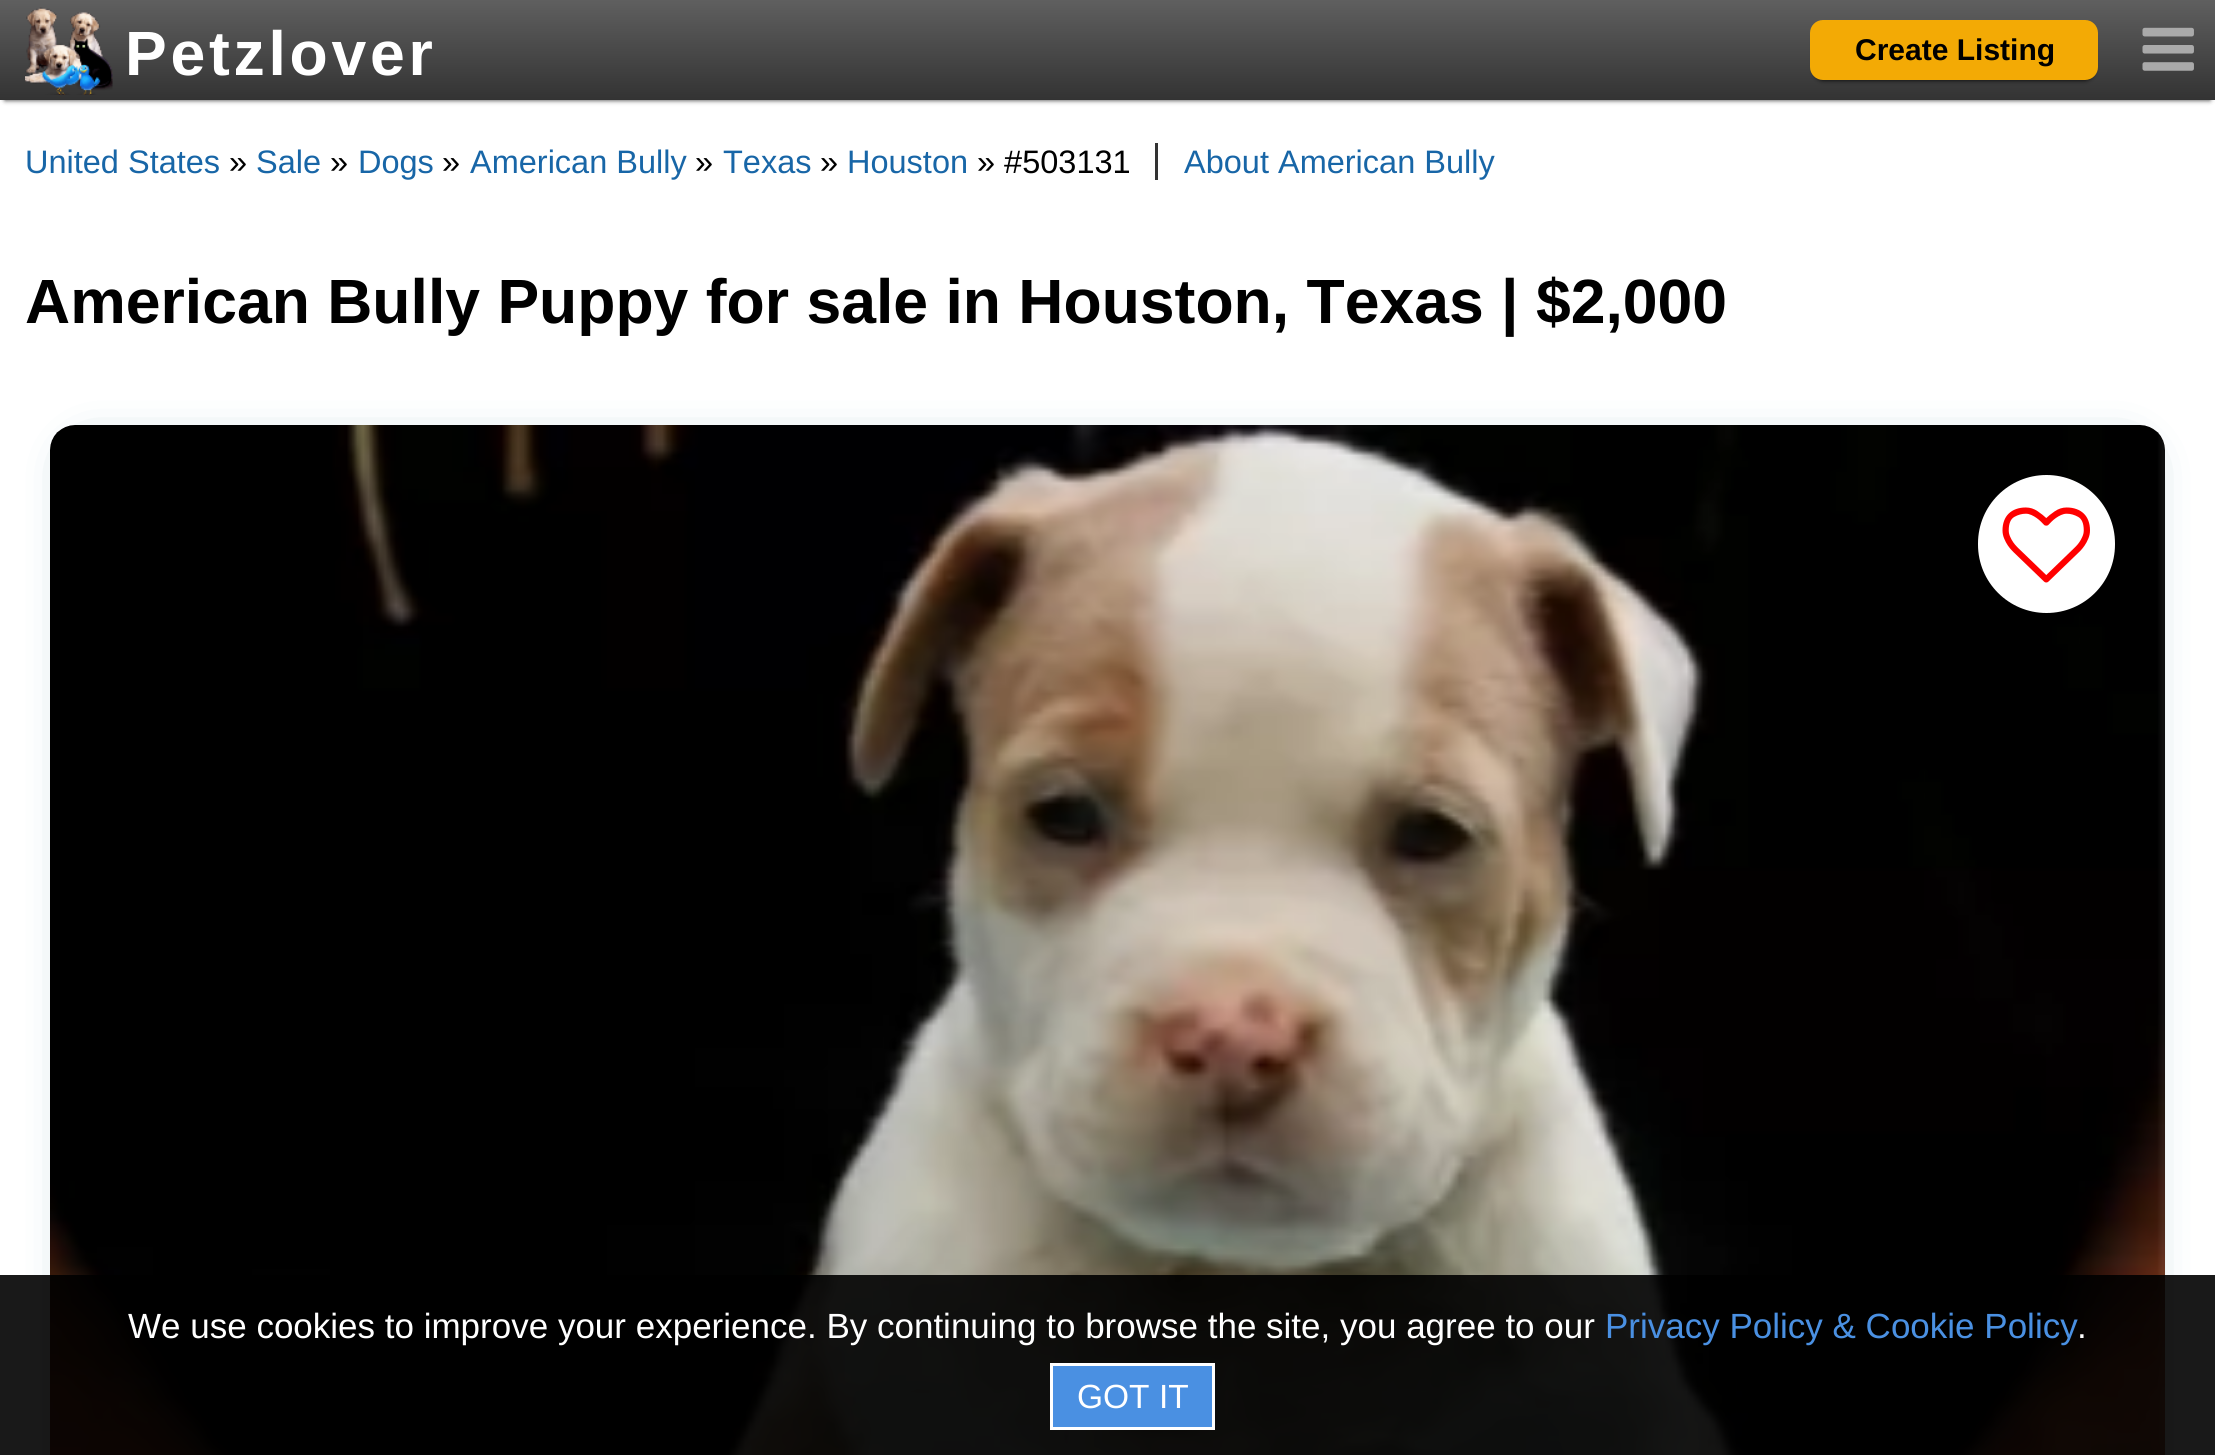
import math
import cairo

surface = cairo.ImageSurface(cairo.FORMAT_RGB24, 2215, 1455)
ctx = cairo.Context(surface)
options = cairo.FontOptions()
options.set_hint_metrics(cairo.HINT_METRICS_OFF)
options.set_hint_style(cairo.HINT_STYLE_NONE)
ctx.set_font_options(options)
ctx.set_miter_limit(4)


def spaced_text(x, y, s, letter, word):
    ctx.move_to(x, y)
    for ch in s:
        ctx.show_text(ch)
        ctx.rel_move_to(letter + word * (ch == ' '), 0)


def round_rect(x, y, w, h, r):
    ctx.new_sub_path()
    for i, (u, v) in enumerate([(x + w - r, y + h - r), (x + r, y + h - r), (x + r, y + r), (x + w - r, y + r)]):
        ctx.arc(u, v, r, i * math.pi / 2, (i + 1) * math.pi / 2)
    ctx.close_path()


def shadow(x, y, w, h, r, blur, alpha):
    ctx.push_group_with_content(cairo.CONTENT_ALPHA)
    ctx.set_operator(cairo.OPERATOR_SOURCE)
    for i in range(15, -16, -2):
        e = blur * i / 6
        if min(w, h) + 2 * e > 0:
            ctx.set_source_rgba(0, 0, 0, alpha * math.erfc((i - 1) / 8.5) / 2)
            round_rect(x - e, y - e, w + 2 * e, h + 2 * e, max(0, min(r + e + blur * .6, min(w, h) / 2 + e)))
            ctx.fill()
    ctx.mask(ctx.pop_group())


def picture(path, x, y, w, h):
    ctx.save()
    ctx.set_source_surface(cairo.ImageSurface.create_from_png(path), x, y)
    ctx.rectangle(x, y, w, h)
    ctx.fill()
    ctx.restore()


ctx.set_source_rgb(1, 1, 1)
ctx.paint()
ctx.set_source_rgb(0, 0, 0)
shadow(5, 10, 2205, 90, 0, 2.5, 0.82)
gradient = cairo.LinearGradient(1108, 0, 1108, 100)
gradient.add_color_stop_rgba(0, 0.373, 0.373, 0.373, 1)
gradient.add_color_stop_rgba(1, 0.2, 0.2, 0.2, 1)
ctx.set_source(gradient)
ctx.rectangle(0, 0, 2215, 100)
ctx.fill()
picture("img1.png", 25, 7, 88, 88)
ctx.select_font_face("Liberation Sans", cairo.FONT_SLANT_NORMAL, cairo.FONT_WEIGHT_BOLD)
ctx.set_font_size(62.5)
ctx.set_source_rgb(1, 1, 1)
spaced_text(125, 75, "Petzlover", 3.75, 0)
ctx.set_source_rgb(0, 0, 0)
shadow(1815, 30, 278, 50, 8, 2.5, 1)
ctx.set_source_rgb(0.953, 0.667, 0.02)
round_rect(1810, 20, 288, 60, 13)
ctx.fill()
ctx.set_font_size(30)
ctx.set_source_rgb(0, 0, 0)
ctx.move_to(1855, 60)
ctx.show_text("Create Listing")
picture("img2.png", 2142, 27, 52, 44)
ctx.select_font_face("Liberation Sans")
ctx.set_font_size(32.5)
ctx.set_source_rgb(0.094, 0.4, 0.655)
ctx.move_to(25, 173)
ctx.show_text("United States")
ctx.set_source_rgb(0, 0, 0)
ctx.move_to(229, 173)
ctx.show_text("»")
ctx.set_source_rgb(0.094, 0.4, 0.655)
ctx.move_to(256, 173)
ctx.show_text("Sale")
ctx.set_source_rgb(0, 0, 0)
ctx.move_to(330, 173)
ctx.show_text("»")
ctx.set_source_rgb(0.094, 0.4, 0.655)
ctx.move_to(358, 173)
ctx.show_text("Dogs")
ctx.set_source_rgb(0, 0, 0)
ctx.move_to(442, 173)
ctx.show_text("»")
ctx.set_source_rgb(0.094, 0.4, 0.655)
ctx.move_to(470, 173)
ctx.show_text("American Bully")
ctx.set_source_rgb(0, 0, 0)
ctx.move_to(695, 173)
ctx.show_text("»")
ctx.set_source_rgb(0.094, 0.4, 0.655)
ctx.move_to(723, 173)
ctx.show_text("Texas")
ctx.set_source_rgb(0, 0, 0)
ctx.move_to(820, 173)
ctx.show_text("»")
ctx.set_source_rgb(0.094, 0.4, 0.655)
ctx.move_to(847, 173)
ctx.show_text("Houston")
ctx.set_source_rgb(0, 0, 0)
ctx.move_to(977, 173)
ctx.show_text("» #503131")
ctx.set_source_rgb(0.094, 0.4, 0.655)
ctx.move_to(1184, 173)
ctx.show_text("About American Bully")
ctx.set_source_rgb(0.2, 0.2, 0.2)
ctx.rectangle(1155, 143, 3, 37)
ctx.fill()
ctx.select_font_face("Liberation Sans", cairo.FONT_SLANT_NORMAL, cairo.FONT_WEIGHT_BOLD)
ctx.set_font_size(62.5)
ctx.set_source_rgb(0, 0, 0)
ctx.move_to(25, 323)
ctx.show_text("American Bully Puppy for sale in Houston, Texas | $2,000")
ctx.save()
ctx.set_fill_rule(cairo.FILL_RULE_EVEN_ODD)
ctx.new_path()
ctx.move_to(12, 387)
ctx.line_to(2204, 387)
ctx.line_to(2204, 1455)
ctx.line_to(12, 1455)
ctx.close_path()
ctx.move_to(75, 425)
ctx.line_to(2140, 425)
ctx.curve_to(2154, 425, 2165, 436, 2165, 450)
ctx.line_to(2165, 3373)
ctx.curve_to(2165, 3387, 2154, 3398, 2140, 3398)
ctx.line_to(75, 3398)
ctx.curve_to(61, 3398, 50, 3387, 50, 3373)
ctx.line_to(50, 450)
ctx.curve_to(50, 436, 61, 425, 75, 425)
ctx.close_path()
ctx.clip()
ctx.set_source_rgb(0.059, 0.431, 0.522)
shadow(88, 463, 2040, 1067, 0, 25, 1)
ctx.restore()
picture("img3.png", 50, 425, 2115, 1030)
ctx.set_source_rgb(1, 1, 1)
round_rect(1978, 475, 137, 138, 68.5)
ctx.fill()
picture("img4.png", 2002, 507, 88, 76)
ctx.set_source_rgba(0, 0, 0, 0.9)
ctx.rectangle(0, 1275, 2215, 180)
ctx.fill()
ctx.select_font_face("Liberation Sans")
ctx.set_font_size(35)
ctx.set_source_rgb(1, 1, 1)
ctx.move_to(128, 1338)
ctx.show_text("We use cookies to improve your experience. By continuing to browse the site, you agree to our")
ctx.set_source_rgb(0.29, 0.565, 0.886)
ctx.move_to(1605, 1338)
ctx.show_text("Privacy Policy & Cookie Policy")
ctx.set_source_rgb(1, 1, 1)
ctx.move_to(2077, 1338)
ctx.show_text(".")
ctx.set_source_rgb(0.29, 0.565, 0.886)
ctx.rectangle(1051.5, 1364.5, 162, 64)
ctx.fill_preserve()
ctx.set_source_rgb(1, 1, 1)
ctx.set_line_width(3)
ctx.stroke()
ctx.set_font_size(33.5)
ctx.move_to(1077, 1408)
ctx.show_text("GOT IT")
surface.write_to_png("page.png")
